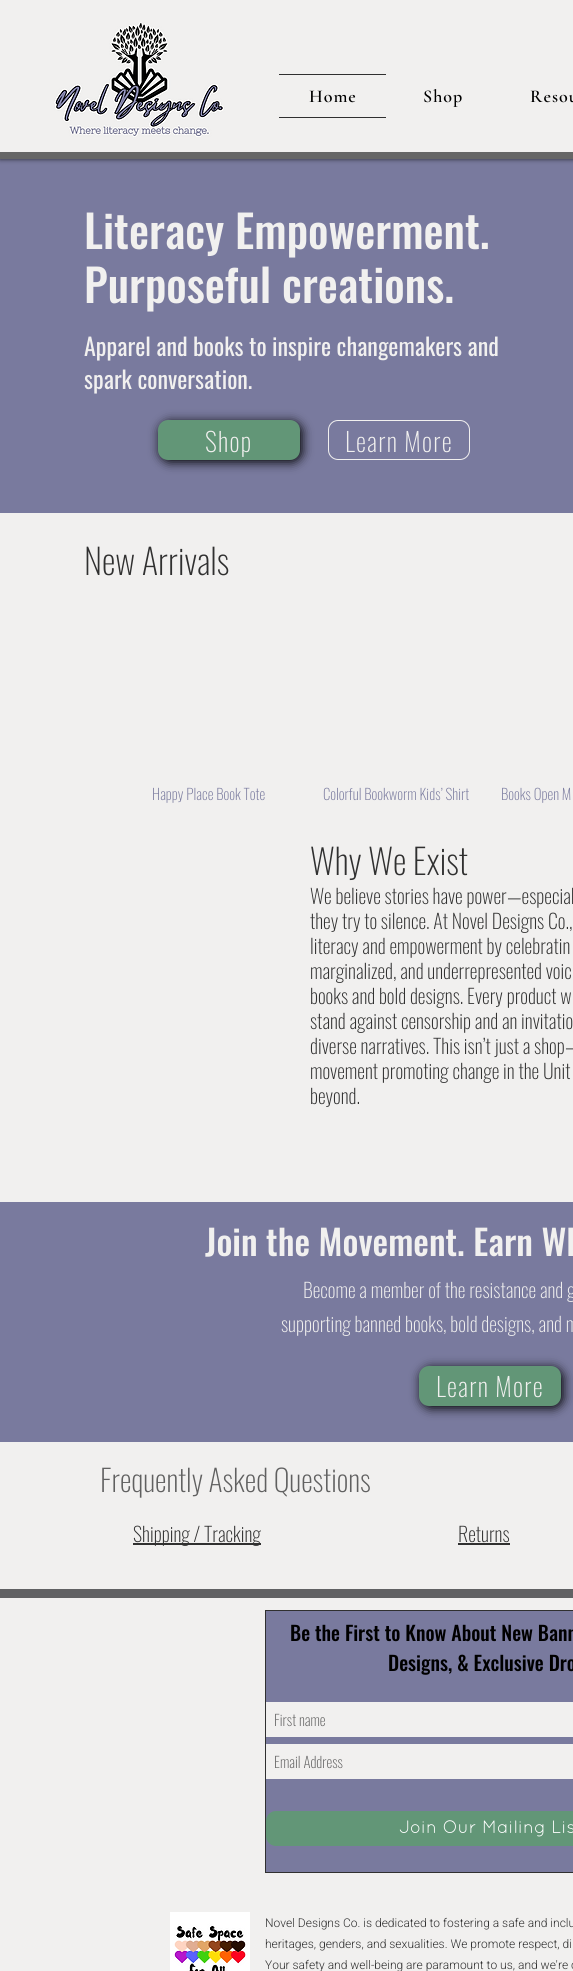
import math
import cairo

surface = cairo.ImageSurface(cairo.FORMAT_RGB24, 573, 1971)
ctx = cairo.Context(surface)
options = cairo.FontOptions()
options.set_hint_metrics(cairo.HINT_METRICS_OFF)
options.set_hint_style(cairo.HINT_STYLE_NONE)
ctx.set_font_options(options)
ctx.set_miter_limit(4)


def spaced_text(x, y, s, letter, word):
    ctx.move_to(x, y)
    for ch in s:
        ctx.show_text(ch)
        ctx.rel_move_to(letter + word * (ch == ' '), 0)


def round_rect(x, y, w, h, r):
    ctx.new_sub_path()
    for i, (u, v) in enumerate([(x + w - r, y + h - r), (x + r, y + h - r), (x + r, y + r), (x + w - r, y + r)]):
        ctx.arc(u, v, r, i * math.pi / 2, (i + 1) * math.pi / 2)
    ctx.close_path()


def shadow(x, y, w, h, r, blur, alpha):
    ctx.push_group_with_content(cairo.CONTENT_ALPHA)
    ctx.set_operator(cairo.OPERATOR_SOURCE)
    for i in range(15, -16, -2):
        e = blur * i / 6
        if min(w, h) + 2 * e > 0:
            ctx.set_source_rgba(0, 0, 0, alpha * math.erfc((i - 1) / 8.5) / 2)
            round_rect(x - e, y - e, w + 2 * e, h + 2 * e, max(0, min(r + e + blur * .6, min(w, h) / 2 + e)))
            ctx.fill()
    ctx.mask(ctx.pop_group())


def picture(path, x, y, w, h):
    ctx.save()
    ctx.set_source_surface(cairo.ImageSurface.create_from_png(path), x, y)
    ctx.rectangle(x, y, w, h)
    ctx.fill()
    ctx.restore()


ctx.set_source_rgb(0.475, 0.478, 0.62)
ctx.paint()
ctx.set_source_rgb(0, 0, 0)
shadow(0, 0, 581, 159, 0, 2.5, 0.7)
ctx.set_source_rgb(0.4, 0.4, 0.4)
ctx.rectangle(0, 152, 573, 7)
ctx.fill()
ctx.set_source_rgb(0.945, 0.941, 0.937)
ctx.rectangle(0, 0, 573, 152)
ctx.fill()
picture("img1.png", 54, 22, 171, 115)
ctx.set_source_rgb(0.188, 0.188, 0.188)
ctx.rectangle(279, 74, 107, 1)
ctx.fill()
ctx.rectangle(279, 117, 107, 1)
ctx.fill()
ctx.select_font_face("Cormorant Garamond SemiBold")
ctx.set_font_size(18)
ctx.set_source_rgb(0, 0, 0)
spaced_text(309, 102, "Home", 1, 0)
spaced_text(423, 102, "Shop", 1, 0)
spaced_text(530, 102, "Resou", 1, 0)
ctx.select_font_face("Oswald Medium")
ctx.set_font_size(45)
ctx.set_source_rgb(0.945, 0.941, 0.937)
ctx.move_to(84, 249)
ctx.show_text("Literacy Empowerment.")
ctx.move_to(84, 303)
ctx.show_text("Purposeful creations.")
ctx.select_font_face("Oswald")
ctx.set_font_size(24)
ctx.move_to(84, 356)
ctx.show_text("Apparel and books to inspire changemakers and")
ctx.move_to(84, 389)
ctx.show_text("spark conversation.")
ctx.set_source_rgb(0, 0, 0)
shadow(160, 422, 142, 40, 10, 5.5, 1)
ctx.set_source_rgb(0.384, 0.588, 0.467)
round_rect(158, 420, 142, 40, 10)
ctx.fill()
ctx.select_font_face("Oswald ExtraLight")
ctx.set_font_size(26)
ctx.set_source_rgb(0.945, 0.941, 0.937)
spaced_text(205, 452, "Shop", 1.25, 0)
round_rect(328.5, 420.5, 141, 39, 9.5)
ctx.set_line_width(1)
ctx.stroke()
spaced_text(345, 452, "Learn More", 1.25, 0)
ctx.rectangle(0, 513, 573, 1076)
ctx.fill()
ctx.set_font_size(35)
ctx.set_source_rgb(0.188, 0.188, 0.188)
ctx.move_to(84, 575)
ctx.show_text("New Arrivals")
ctx.set_font_size(15)
ctx.set_source_rgb(0.475, 0.478, 0.62)
ctx.move_to(152, 800)
ctx.show_text("Happy Place Book Tote")
ctx.move_to(323, 800)
ctx.show_text("Colorful Bookworm Kids’ Shirt")
ctx.move_to(501, 800)
ctx.show_text("Books Open M")
ctx.set_font_size(35)
ctx.set_source_rgb(0.188, 0.188, 0.188)
ctx.move_to(310, 875)
ctx.show_text("Why We Exist")
ctx.set_font_size(20)
ctx.move_to(310, 904)
ctx.show_text("We believe stories have power—especial")
ctx.move_to(310, 929)
ctx.show_text("they try to silence. At Novel Designs Co.,")
ctx.move_to(310, 954)
ctx.show_text("literacy and empowerment by celebratin")
ctx.move_to(310, 979)
ctx.show_text("marginalized, and underrepresented voic")
ctx.move_to(310, 1004)
ctx.show_text("books and bold designs. Every product w")
ctx.move_to(310, 1029)
ctx.show_text("stand against censorship and an invitatio")
ctx.move_to(310, 1054)
ctx.show_text("diverse narratives. This isn’t just a shop—")
ctx.move_to(310, 1079)
ctx.show_text("movement promoting change in the Unit")
ctx.move_to(310, 1104)
ctx.show_text("beyond.")
ctx.set_source_rgb(0.475, 0.478, 0.62)
ctx.rectangle(0, 1202, 573, 240)
ctx.fill()
ctx.select_font_face("Oswald Medium")
ctx.set_font_size(35)
ctx.set_source_rgb(0.945, 0.941, 0.937)
ctx.move_to(205, 1256)
ctx.show_text("Join the Movement. Earn Wh")
ctx.select_font_face("Oswald ExtraLight")
ctx.set_font_size(20)
ctx.move_to(303, 1298)
ctx.show_text("Become a member of the resistance and g")
ctx.move_to(281, 1332)
ctx.show_text("supporting banned books, bold designs, and m")
ctx.set_source_rgb(0, 0, 0)
shadow(421, 1368, 142, 40, 10, 5.5, 1)
ctx.set_source_rgb(0.384, 0.588, 0.467)
round_rect(419, 1366, 142, 40, 10)
ctx.fill()
ctx.set_font_size(26)
ctx.set_source_rgb(0.945, 0.941, 0.937)
spaced_text(436, 1397, "Learn More", 1.25, 0)
ctx.set_font_size(30)
ctx.set_source_rgb(0.376, 0.376, 0.376)
ctx.move_to(100, 1492)
ctx.show_text("Frequently Asked Questions")
ctx.set_source_rgb(0.188, 0.188, 0.188)
ctx.rectangle(133, 1543, 128, 2)
ctx.fill()
ctx.set_font_size(20)
ctx.move_to(133, 1542)
ctx.show_text("Shipping / Tracking")
ctx.move_to(458, 1542)
ctx.show_text("Returns")
ctx.rectangle(458, 1543, 52, 2)
ctx.fill()
ctx.set_source_rgb(0.38, 0.38, 0.388)
ctx.rectangle(0, 1589, 573, 9)
ctx.fill()
ctx.set_source_rgb(0.945, 0.941, 0.937)
ctx.rectangle(0, 1598, 573, 373)
ctx.fill()
ctx.set_source_rgb(0.475, 0.478, 0.62)
ctx.rectangle(265.5, 1610.5, 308, 262)
ctx.fill_preserve()
ctx.set_source_rgb(0.188, 0.188, 0.188)
ctx.stroke()
ctx.select_font_face("Oswald Medium")
ctx.set_source_rgb(0, 0, 0)
ctx.move_to(290, 1641)
ctx.show_text("Be the First to Know About New Bann")
ctx.move_to(388, 1671)
ctx.show_text("Designs, & Exclusive Dro")
ctx.set_source_rgb(0.945, 0.941, 0.937)
ctx.rectangle(266, 1702, 307, 35)
ctx.fill()
ctx.select_font_face("Oswald ExtraLight")
ctx.set_font_size(15)
ctx.set_source_rgb(0.376, 0.376, 0.376)
ctx.move_to(274, 1726)
ctx.show_text("First name")
ctx.set_source_rgb(0.945, 0.941, 0.937)
ctx.rectangle(266, 1744, 307, 35)
ctx.fill()
ctx.set_source_rgb(0.376, 0.376, 0.376)
ctx.move_to(274, 1768)
ctx.show_text("Email Address")
ctx.set_source_rgb(0.384, 0.588, 0.467)
round_rect(266, 1811, 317, 35, 10)
ctx.fill()
ctx.select_font_face("Quicksand")
ctx.set_font_size(18)
ctx.set_source_rgb(1, 1, 1)
ctx.move_to(399, 1833)
ctx.show_text("Join Our Mailing Lis")
picture("img2.png", 170, 1912, 80, 59)
ctx.select_font_face("Heebo Light")
ctx.set_font_size(12)
ctx.set_source_rgb(0.188, 0.188, 0.188)
ctx.move_to(265, 1927)
ctx.show_text("Novel Designs Co. is dedicated to fostering a safe and inclu")
ctx.move_to(265, 1948)
ctx.show_text("heritages, genders, and sexualities. We promote respect, di")
ctx.move_to(265, 1969)
ctx.show_text("Your safety and well-being are paramount to us, and we're c")
surface.write_to_png("page.png")
